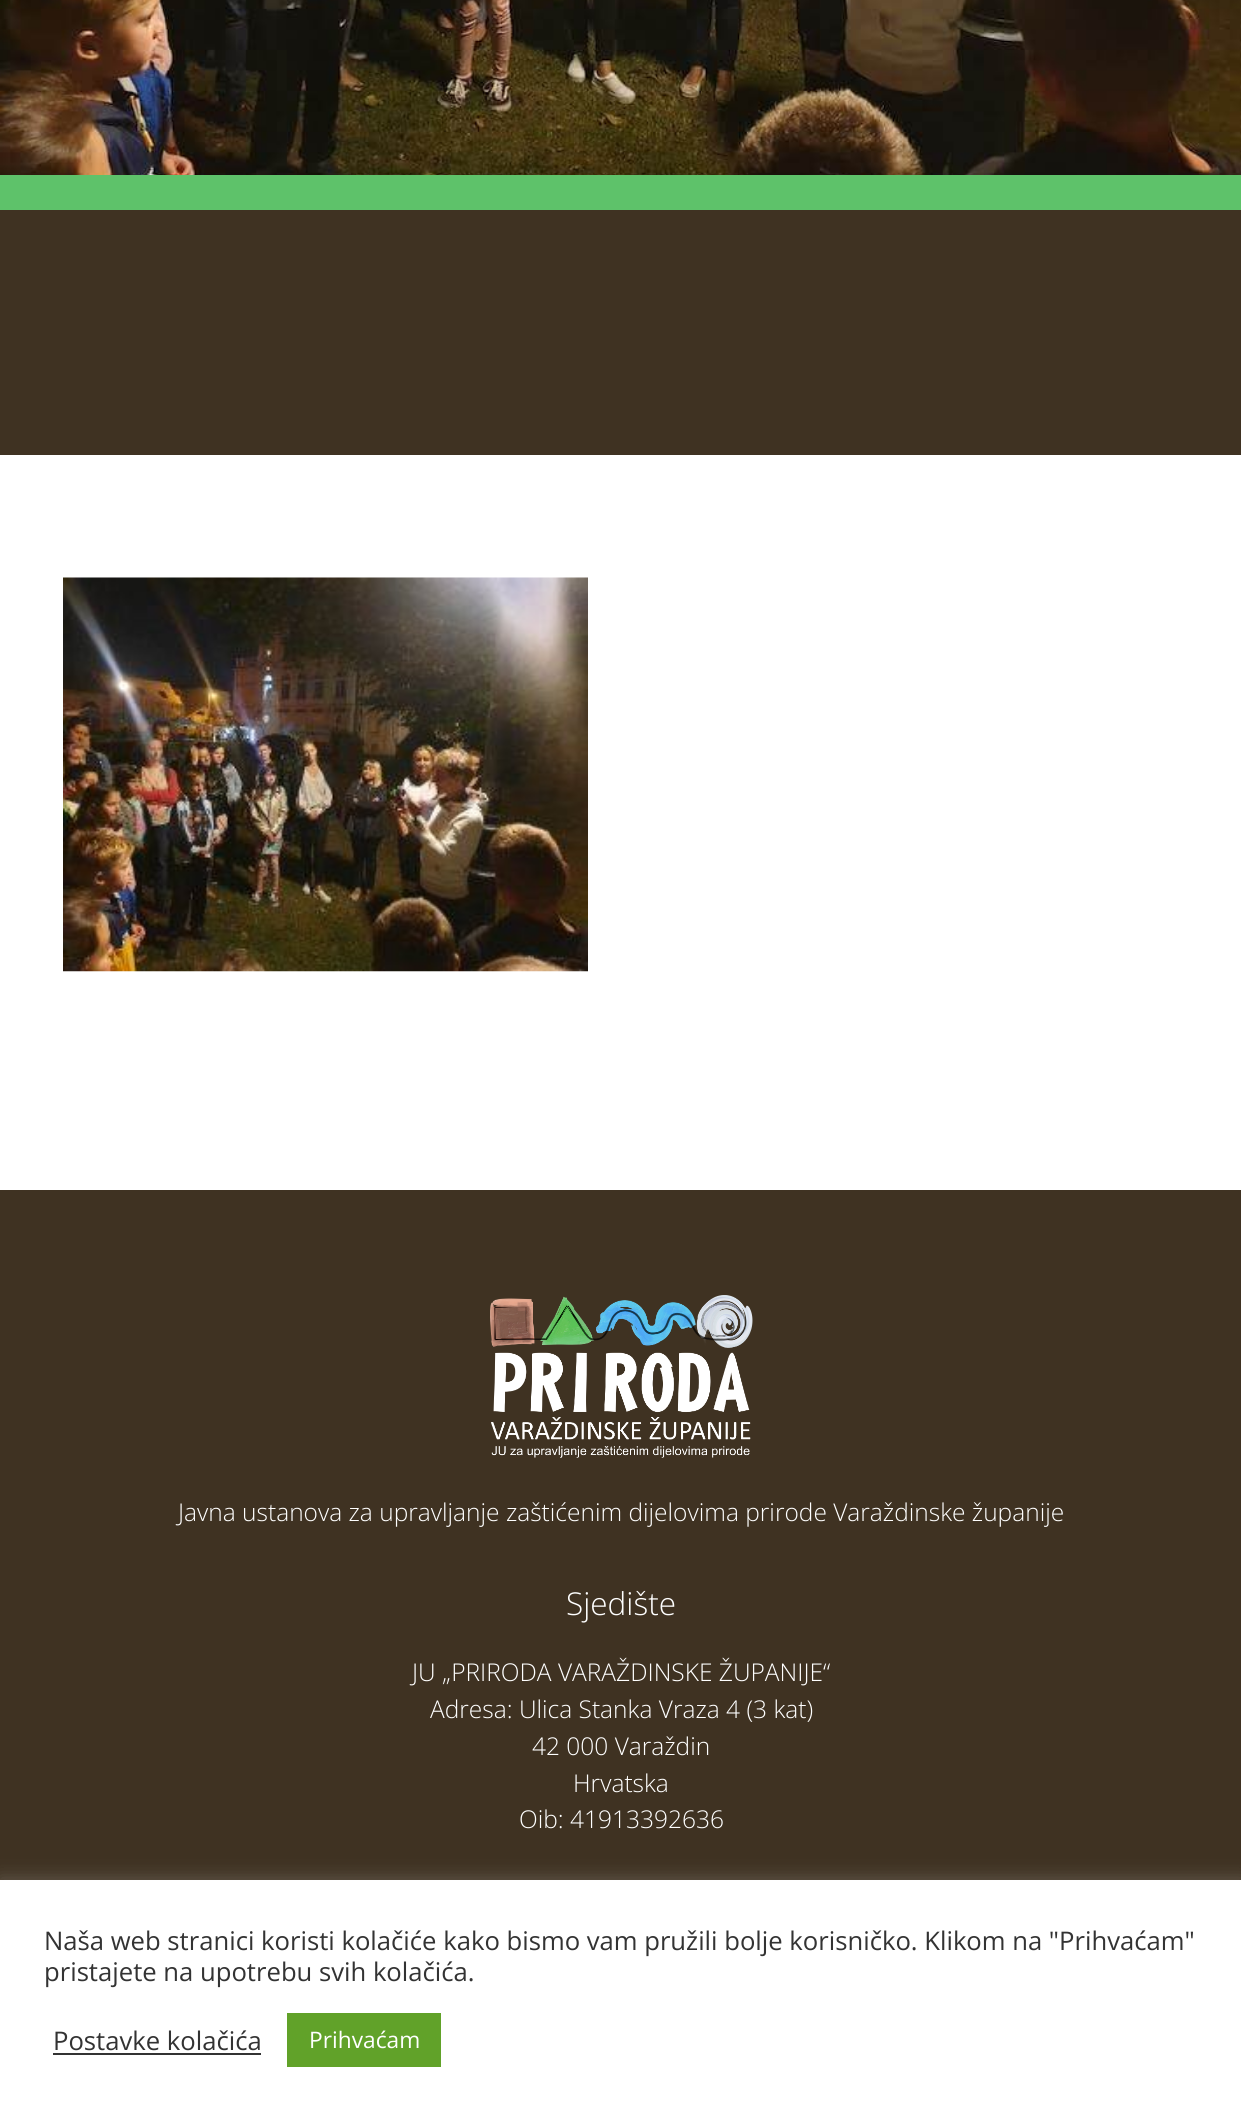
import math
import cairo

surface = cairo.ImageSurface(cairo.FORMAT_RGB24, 1241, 2118)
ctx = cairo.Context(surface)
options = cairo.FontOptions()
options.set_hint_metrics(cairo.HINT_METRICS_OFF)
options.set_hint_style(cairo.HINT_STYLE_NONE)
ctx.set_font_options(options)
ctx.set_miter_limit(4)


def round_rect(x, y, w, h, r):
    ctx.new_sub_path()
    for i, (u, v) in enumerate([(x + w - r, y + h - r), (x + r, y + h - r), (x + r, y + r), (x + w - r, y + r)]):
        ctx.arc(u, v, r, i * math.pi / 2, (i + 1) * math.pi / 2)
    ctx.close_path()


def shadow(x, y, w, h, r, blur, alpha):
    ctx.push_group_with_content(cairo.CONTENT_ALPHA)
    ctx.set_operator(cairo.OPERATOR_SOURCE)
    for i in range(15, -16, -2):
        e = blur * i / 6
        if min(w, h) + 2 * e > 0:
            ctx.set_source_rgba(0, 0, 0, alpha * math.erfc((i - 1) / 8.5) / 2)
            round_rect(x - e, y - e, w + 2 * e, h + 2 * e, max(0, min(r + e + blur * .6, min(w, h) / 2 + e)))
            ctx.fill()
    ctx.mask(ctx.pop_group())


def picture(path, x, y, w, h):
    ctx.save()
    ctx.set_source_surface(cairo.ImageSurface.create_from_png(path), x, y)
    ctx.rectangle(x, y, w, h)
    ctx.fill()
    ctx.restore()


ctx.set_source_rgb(1, 1, 1)
ctx.paint()
picture("img1.png", 0, 0, 1241, 175)
ctx.set_source_rgb(0.369, 0.761, 0.416)
ctx.rectangle(0, 175, 1241, 35)
ctx.fill()
ctx.set_source_rgb(0.247, 0.196, 0.133)
ctx.rectangle(0, 210, 1241, 245)
ctx.fill()
picture("img2.png", 63, 577, 525, 395)
ctx.rectangle(0, 1190, 1241, 690)
ctx.fill()
picture("img3.png", 490, 1295, 263, 163)
ctx.select_font_face("Open Sans Light")
ctx.set_font_size(24.5)
ctx.set_source_rgb(1, 1, 1)
ctx.move_to(178, 1521)
ctx.show_text("Javna ustanova za upravljanje zaštićenim dijelovima prirode Varaždinske županije")
ctx.set_font_size(31.5)
ctx.move_to(566, 1615)
ctx.show_text("Sjedište")
ctx.set_font_size(24.5)
ctx.move_to(412, 1681)
ctx.show_text("JU „PRIRODA VARAŽDINSKE ŽUPANIJE“")
ctx.move_to(430, 1718)
ctx.show_text("Adresa: Ulica Stanka Vraza 4 (3 kat)")
ctx.move_to(532, 1755)
ctx.show_text("42 000 Varaždin")
ctx.move_to(573, 1792)
ctx.show_text("Hrvatska")
ctx.move_to(519, 1828)
ctx.show_text("Oib: 41913392636")
ctx.set_source_rgb(0.675, 0.671, 0.671)
shadow(0, 1878, 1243, 240, 0, 9, 0.3)
ctx.set_source_rgb(1, 1, 1)
ctx.rectangle(0, 1880, 1241, 238)
ctx.fill()
ctx.select_font_face("Open Sans")
ctx.set_font_size(25.65)
ctx.set_source_rgb(0.2, 0.2, 0.2)
ctx.move_to(44, 1950)
ctx.show_text("Naša web stranici koristi kolačiće kako bismo vam pružili bolje korisničko. Klikom na \"Prihvaćam\"")
ctx.move_to(44, 1981)
ctx.show_text("pristajete na upotrebu svih kolačića.")
ctx.move_to(53, 2050)
ctx.show_text("Postavke kolačića")
ctx.rectangle(53, 2053, 208, 2)
ctx.fill()
ctx.set_source_rgb(0.38, 0.635, 0.161)
ctx.rectangle(287, 2013, 154, 54)
ctx.fill()
ctx.set_font_size(22.75)
ctx.set_source_rgb(1, 1, 1)
ctx.move_to(309, 2048)
ctx.show_text("Prihvaćam")
surface.write_to_png("page.png")
